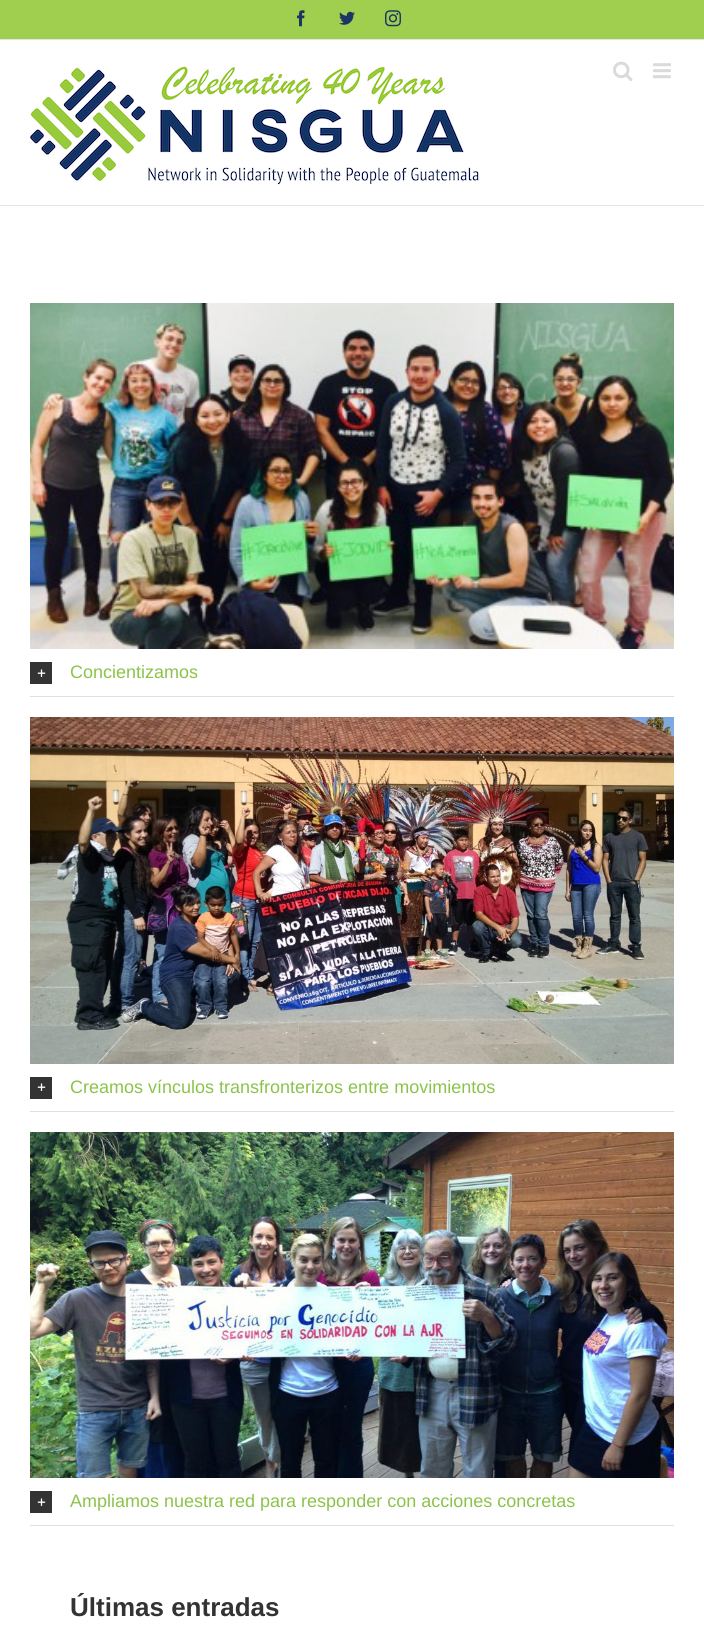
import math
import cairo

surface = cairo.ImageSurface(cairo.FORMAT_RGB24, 704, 1627)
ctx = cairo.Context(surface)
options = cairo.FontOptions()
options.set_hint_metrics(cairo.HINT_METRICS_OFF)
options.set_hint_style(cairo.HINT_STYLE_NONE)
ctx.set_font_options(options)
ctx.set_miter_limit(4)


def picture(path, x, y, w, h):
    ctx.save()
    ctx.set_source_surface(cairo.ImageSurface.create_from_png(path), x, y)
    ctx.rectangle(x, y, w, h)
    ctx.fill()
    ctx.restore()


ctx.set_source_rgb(1, 1, 1)
ctx.paint()
ctx.set_source_rgb(0.627, 0.808, 0.306)
ctx.rectangle(0, 0, 704, 39)
ctx.fill()
ctx.set_source_rgb(0.898, 0.898, 0.898)
ctx.rectangle(0, 39, 704, 1)
ctx.fill()
picture("img1.png", 297, 10, 8, 17)
picture("img2.png", 339, 11, 16, 14)
picture("img3.png", 385, 10, 16, 17)
ctx.rectangle(0, 205, 704, 1)
ctx.fill()
picture("img4.png", 30, 66, 449, 119)
picture("img5.png", 613, 61, 20, 20)
picture("img6.png", 653, 63, 18, 16)
picture("img7.png", 30, 303, 644, 346)
ctx.set_source_rgb(0.878, 0.871, 0.871)
ctx.rectangle(30, 696, 644, 1)
ctx.fill()
ctx.set_source_rgb(0.2, 0.2, 0.2)
ctx.rectangle(30, 662, 22, 22)
ctx.fill()
picture("img8.png", 37, 669, 9, 8)
ctx.select_font_face("Liberation Sans")
ctx.set_font_size(18)
ctx.set_source_rgb(0.545, 0.765, 0.29)
ctx.move_to(70, 678)
ctx.show_text("Concientizamos")
picture("img9.png", 30, 717, 644, 347)
ctx.set_source_rgb(0.878, 0.871, 0.871)
ctx.rectangle(30, 1111, 644, 1)
ctx.fill()
ctx.set_source_rgb(0.2, 0.2, 0.2)
ctx.rectangle(30, 1077, 22, 22)
ctx.fill()
picture("img8.png", 37, 1083, 9, 8)
ctx.set_source_rgb(0.545, 0.765, 0.29)
ctx.move_to(70, 1093)
ctx.show_text("Creamos vínculos transfronterizos entre movimientos")
picture("img10.png", 30, 1132, 644, 346)
ctx.set_source_rgb(0.878, 0.871, 0.871)
ctx.rectangle(30, 1525, 644, 1)
ctx.fill()
ctx.set_source_rgb(0.2, 0.2, 0.2)
ctx.rectangle(30, 1491, 22, 22)
ctx.fill()
picture("img8.png", 37, 1498, 9, 8)
ctx.set_source_rgb(0.545, 0.765, 0.29)
ctx.move_to(70, 1507)
ctx.show_text("Ampliamos nuestra red para responder con acciones concretas")
ctx.select_font_face("Liberation Sans", cairo.FONT_SLANT_NORMAL, cairo.FONT_WEIGHT_BOLD)
ctx.set_font_size(26)
ctx.set_source_rgb(0.2, 0.2, 0.2)
ctx.move_to(70, 1616)
ctx.show_text("Últimas entradas")
surface.write_to_png("page.png")
